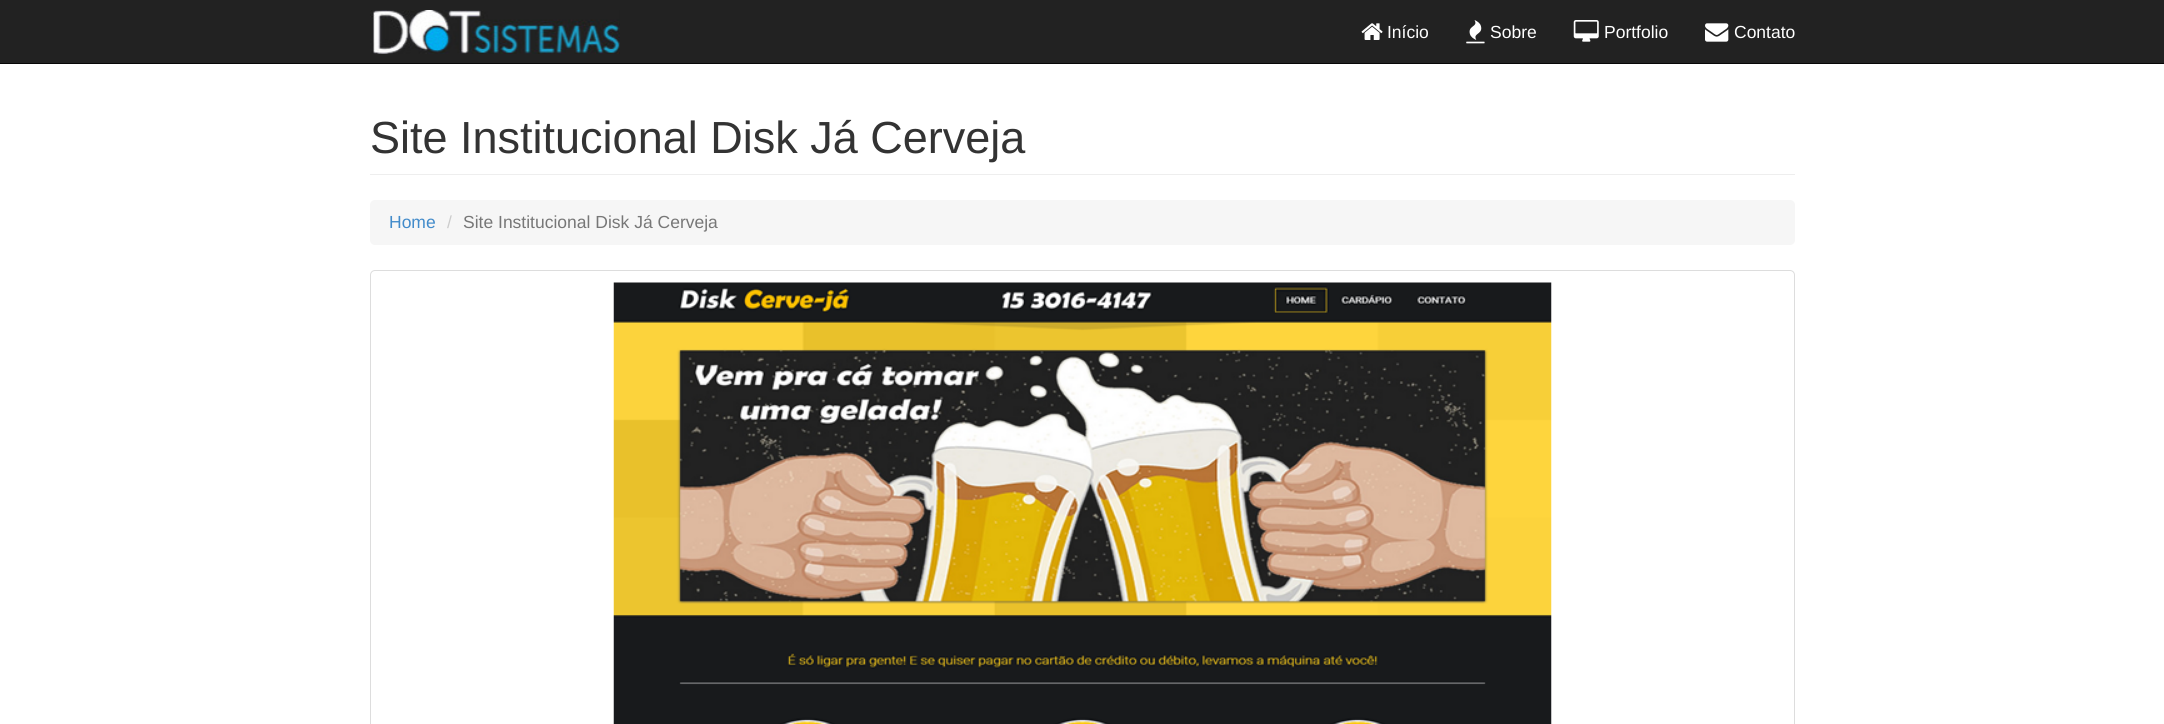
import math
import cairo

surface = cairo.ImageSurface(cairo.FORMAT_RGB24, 2164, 724)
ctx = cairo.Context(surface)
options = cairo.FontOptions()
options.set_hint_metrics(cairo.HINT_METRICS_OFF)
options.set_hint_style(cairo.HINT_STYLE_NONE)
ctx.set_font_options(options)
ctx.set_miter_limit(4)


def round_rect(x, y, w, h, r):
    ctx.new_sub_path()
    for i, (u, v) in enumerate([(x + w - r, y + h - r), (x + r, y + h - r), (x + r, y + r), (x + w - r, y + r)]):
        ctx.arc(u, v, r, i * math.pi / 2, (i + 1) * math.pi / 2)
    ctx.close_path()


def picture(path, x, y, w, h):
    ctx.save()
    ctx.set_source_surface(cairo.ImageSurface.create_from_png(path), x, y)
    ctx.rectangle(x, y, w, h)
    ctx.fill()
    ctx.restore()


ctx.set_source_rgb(1, 1, 1)
ctx.paint()
ctx.set_source_rgb(0.133, 0.133, 0.133)
ctx.rectangle(0, 0, 2164, 63)
ctx.fill()
ctx.set_source_rgb(0.031, 0.031, 0.031)
ctx.rectangle(0, 63, 2164, 1)
ctx.fill()
picture("img1.png", 370, 10, 250, 44)
picture("img2.png", 1361, 23, 22, 17)
ctx.select_font_face("Liberation Sans")
ctx.set_font_size(17.5)
ctx.set_source_rgb(1, 1, 1)
ctx.move_to(1387, 38)
ctx.show_text("Início")
picture("img3.png", 1466, 20, 19, 24)
ctx.move_to(1490, 38)
ctx.show_text("Sobre")
picture("img4.png", 1573, 20, 26, 22)
ctx.move_to(1604, 38)
ctx.show_text("Portfolio")
picture("img5.png", 1705, 23, 24, 19)
ctx.move_to(1734, 38)
ctx.show_text("Contato")
ctx.set_source_rgb(0.933, 0.933, 0.933)
ctx.rectangle(370, 174, 1425, 1)
ctx.fill()
ctx.set_font_size(45)
ctx.set_source_rgb(0.2, 0.2, 0.2)
ctx.move_to(370, 153)
ctx.show_text("Site Institucional Disk Já Cerveja")
ctx.set_source_rgb(0.961, 0.961, 0.961)
round_rect(370, 200, 1425, 45, 5)
ctx.fill()
ctx.set_font_size(17.5)
ctx.set_source_rgb(0.259, 0.545, 0.792)
ctx.move_to(389, 228)
ctx.show_text("Home")
ctx.set_source_rgb(0.8, 0.8, 0.8)
ctx.move_to(447, 228)
ctx.show_text("/")
ctx.set_source_rgb(0.467, 0.467, 0.467)
ctx.move_to(463, 228)
ctx.show_text("Site Institucional Disk Já Cerveja")
round_rect(370.5, 270.5, 1424, 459, 4.5)
ctx.set_source_rgb(0.867, 0.867, 0.867)
ctx.set_line_width(1)
ctx.stroke()
picture("img6.png", 613, 282, 939, 442)
surface.write_to_png("page.png")
